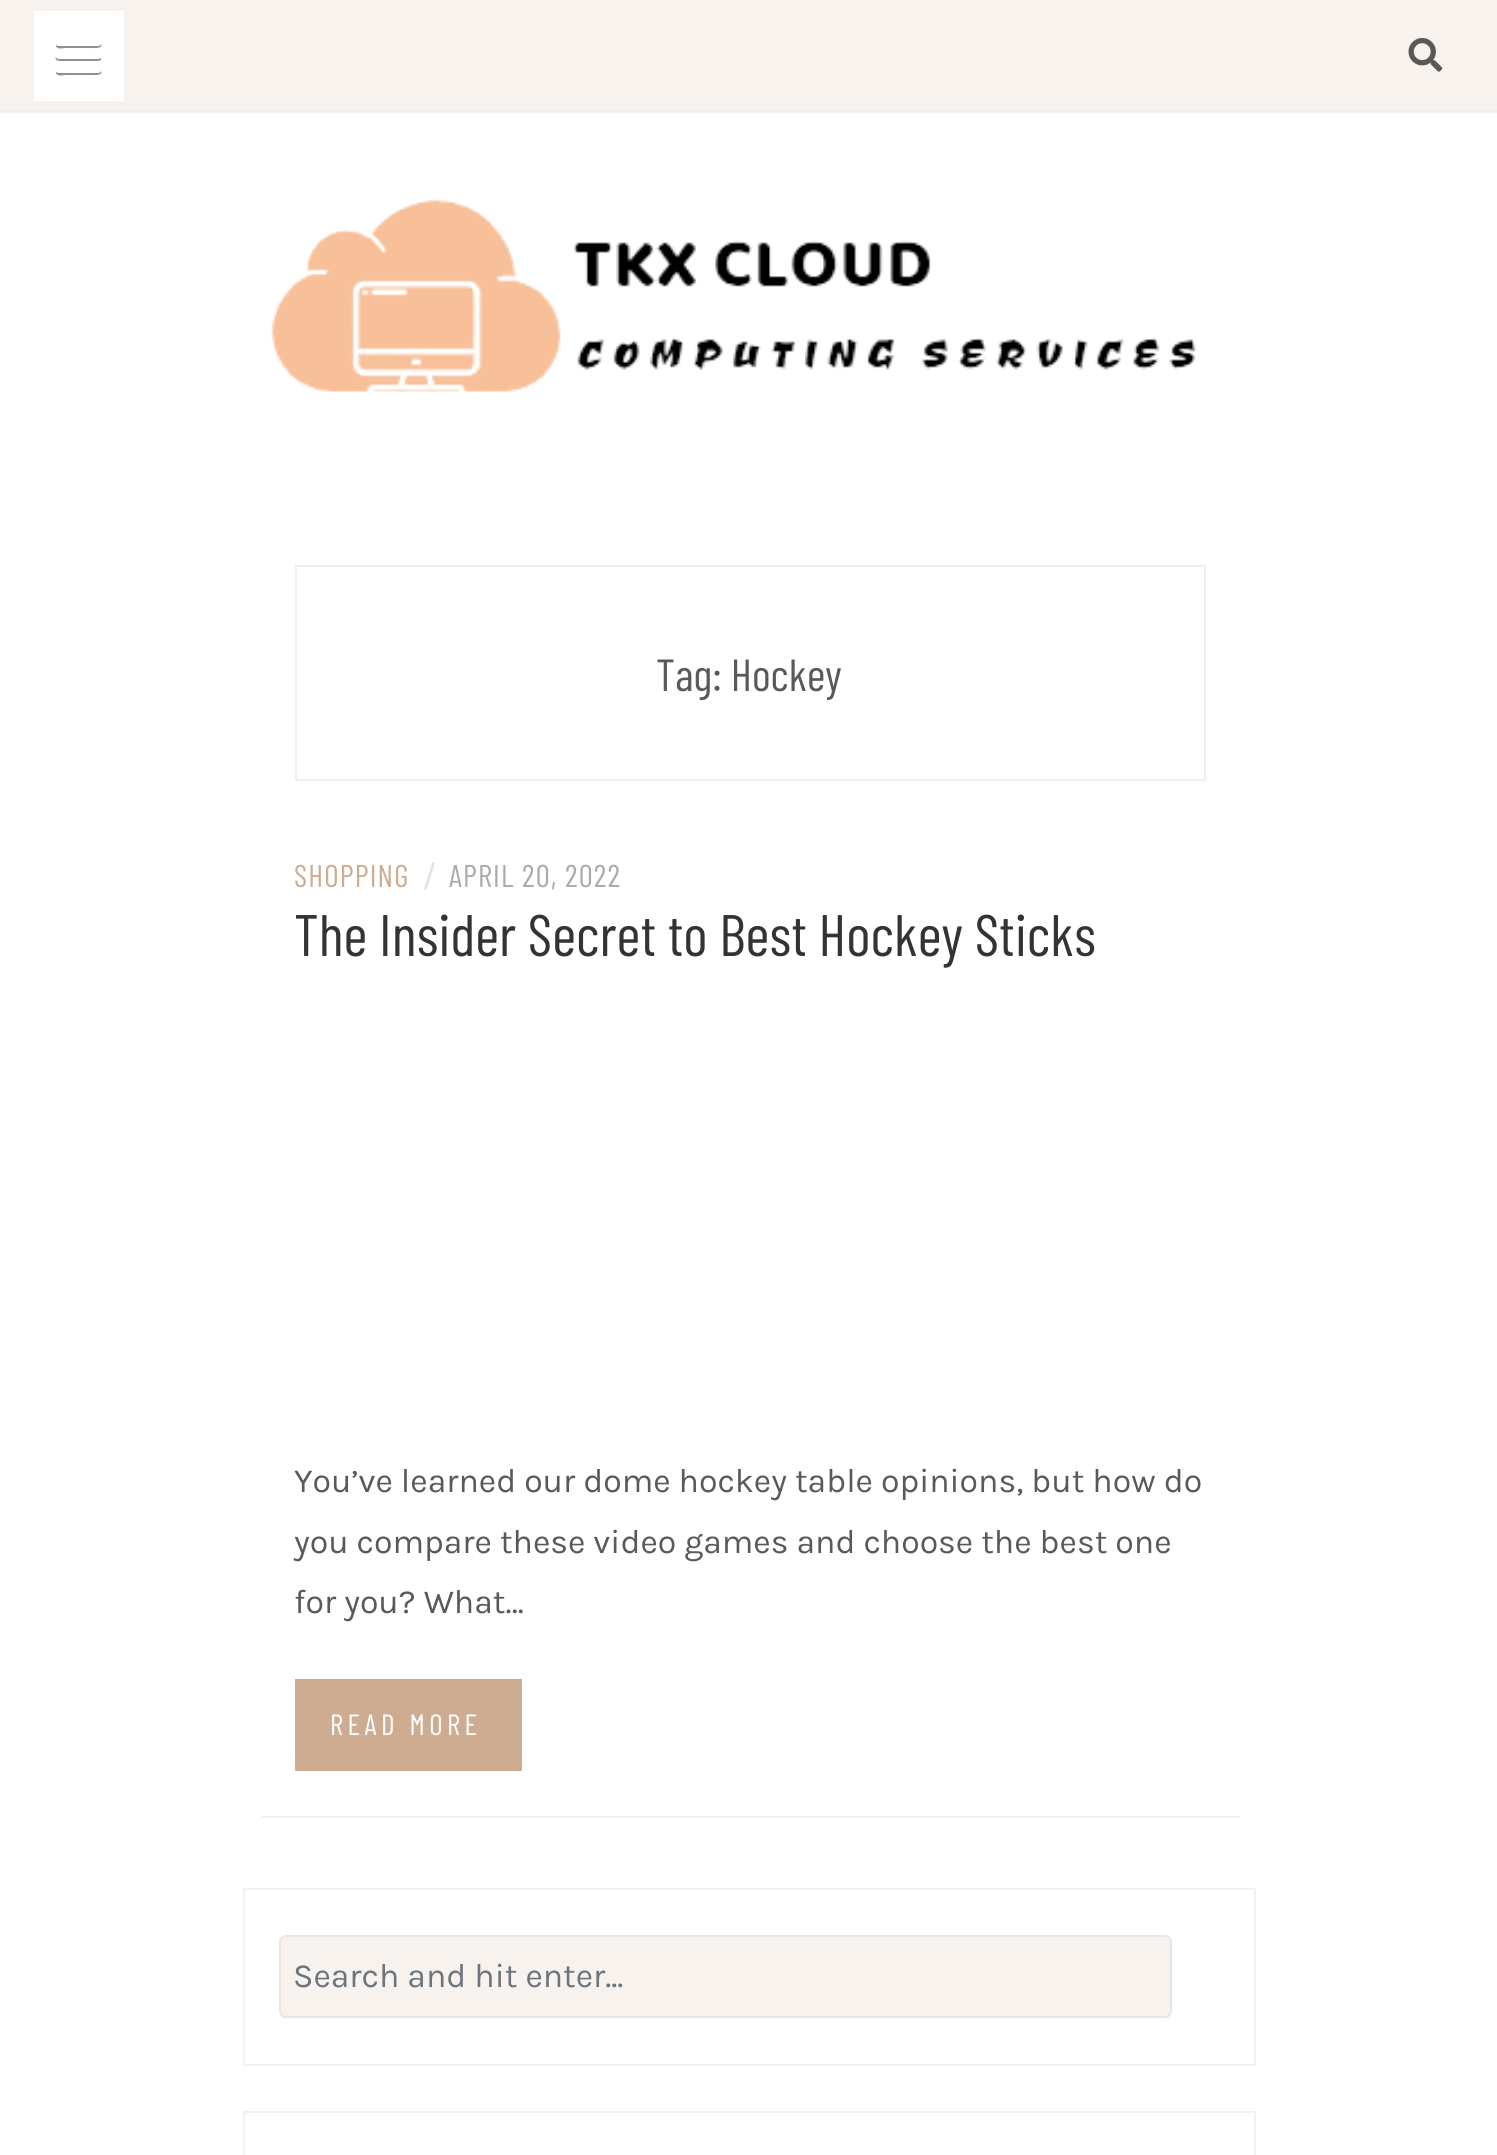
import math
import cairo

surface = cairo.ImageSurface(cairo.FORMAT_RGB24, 1497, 2155)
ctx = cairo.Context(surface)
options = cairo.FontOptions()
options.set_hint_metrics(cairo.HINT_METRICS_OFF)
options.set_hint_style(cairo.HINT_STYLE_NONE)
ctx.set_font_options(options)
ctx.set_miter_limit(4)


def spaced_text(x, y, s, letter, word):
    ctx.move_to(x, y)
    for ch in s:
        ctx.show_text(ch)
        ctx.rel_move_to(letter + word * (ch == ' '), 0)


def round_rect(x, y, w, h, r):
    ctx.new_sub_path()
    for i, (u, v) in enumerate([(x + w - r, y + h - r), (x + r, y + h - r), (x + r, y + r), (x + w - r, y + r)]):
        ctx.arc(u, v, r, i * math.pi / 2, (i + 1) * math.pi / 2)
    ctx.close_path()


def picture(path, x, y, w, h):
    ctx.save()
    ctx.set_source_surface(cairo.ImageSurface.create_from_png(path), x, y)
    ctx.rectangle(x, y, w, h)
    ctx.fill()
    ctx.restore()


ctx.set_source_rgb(1, 1, 1)
ctx.paint()
ctx.set_source_rgb(0.969, 0.949, 0.933)
ctx.rectangle(0, 0, 1497, 113)
ctx.fill()
ctx.set_source_rgb(0.933, 0.933, 0.933)
ctx.rectangle(0, 110, 1497, 2)
ctx.fill()
ctx.set_source_rgb(1, 1, 1)
ctx.rectangle(34, 11, 90, 90)
ctx.fill()
ctx.set_source_rgb(0.569, 0.569, 0.569)
ctx.new_path()
ctx.move_to(57, 44)
ctx.line_to(56, 46)
ctx.curve_to(57, 50, 64, 48, 65, 48)
ctx.line_to(92, 48)
ctx.curve_to(92, 48, 104, 49, 101, 44)
ctx.curve_to(99, 46, 70, 45, 65, 45)
ctx.curve_to(65, 45, 58, 46, 57, 44)
ctx.close_path()
ctx.fill()
ctx.set_source_rgb(1, 1, 1)
round_rect(56, 41, 45, 5, 2.5)
ctx.fill()
ctx.set_source_rgb(0.569, 0.569, 0.569)
ctx.new_path()
ctx.move_to(56, 57)
ctx.curve_to(53, 62, 65, 61, 65, 61)
ctx.line_to(92, 61)
ctx.curve_to(93, 61, 103, 62, 101, 58)
ctx.line_to(99, 58)
ctx.line_to(58, 58)
ctx.curve_to(58, 58, 57, 58, 56, 57)
ctx.close_path()
ctx.fill()
ctx.set_source_rgb(1, 1, 1)
round_rect(56, 54, 45, 5, 2.5)
ctx.fill()
ctx.set_source_rgb(0.569, 0.569, 0.569)
ctx.new_path()
ctx.move_to(57, 71)
ctx.line_to(56, 73)
ctx.curve_to(57, 77, 64, 75, 65, 75)
ctx.line_to(92, 75)
ctx.curve_to(92, 75, 104, 76, 101, 71)
ctx.curve_to(99, 73, 70, 72, 65, 72)
ctx.curve_to(65, 72, 58, 73, 57, 71)
ctx.close_path()
ctx.fill()
ctx.set_source_rgb(1, 1, 1)
round_rect(56, 68, 45, 5, 2.5)
ctx.fill()
picture("img1.png", 1408, 38, 35, 34)
picture("img2.png", 271, 199, 925, 194)
ctx.rectangle(296, 566, 909, 214)
ctx.set_source_rgb(0.933, 0.933, 0.933)
ctx.stroke()
ctx.select_font_face("Barlow Condensed")
ctx.set_font_size(45)
ctx.set_source_rgb(0.349, 0.349, 0.349)
ctx.move_to(656, 691)
ctx.show_text("Tag: Hockey")
ctx.set_source_rgb(0.949, 0.945, 0.945)
ctx.rectangle(261, 1816, 979, 2)
ctx.fill()
ctx.set_font_size(31.5)
ctx.set_source_rgb(0.808, 0.675, 0.573)
spaced_text(294, 887, "SHOPPING", 1.1, 0)
ctx.select_font_face("Karla")
ctx.set_font_size(33.75)
ctx.set_source_rgb(0.882, 0.882, 0.882)
ctx.move_to(422, 887)
ctx.show_text("/")
ctx.select_font_face("Barlow Condensed")
ctx.set_font_size(31.5)
ctx.set_source_rgb(0.667, 0.667, 0.667)
spaced_text(449, 887, "APRIL 20, 2022", 1.1, 0)
ctx.set_font_size(58.5)
ctx.set_source_rgb(0.2, 0.2, 0.2)
ctx.move_to(294, 956)
ctx.show_text("The Insider Secret to Best Hockey Sticks")
ctx.select_font_face("Karla")
ctx.set_font_size(33.75)
ctx.set_source_rgb(0.349, 0.349, 0.349)
ctx.move_to(294, 1492)
ctx.show_text("You’ve learned our dome hockey table opinions, but how do")
ctx.move_to(294, 1553)
ctx.show_text("you compare these video games and choose the best one")
ctx.move_to(294, 1613)
ctx.show_text("for you? What…")
ctx.set_source_rgb(0.808, 0.675, 0.573)
ctx.rectangle(295, 1679, 227, 92)
ctx.fill()
ctx.select_font_face("Barlow Condensed")
ctx.set_font_size(29.25)
ctx.set_source_rgb(1, 1, 1)
spaced_text(330, 1735, "READ MORE", 4.5, 0)
ctx.rectangle(244, 1889, 1011, 176)
ctx.set_source_rgb(0.949, 0.945, 0.945)
ctx.stroke()
ctx.set_source_rgb(0.969, 0.949, 0.933)
round_rect(280, 1936, 891, 81, 6)
ctx.fill_preserve()
ctx.set_source_rgb(0.902, 0.902, 0.902)
ctx.stroke()
ctx.select_font_face("Karla")
ctx.set_font_size(33.75)
ctx.set_source_rgb(0.424, 0.459, 0.49)
ctx.move_to(293, 1987)
ctx.show_text("Search and hit enter...")
ctx.rectangle(244, 2112, 1011, 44)
ctx.set_source_rgb(0.949, 0.945, 0.945)
ctx.stroke()
surface.write_to_png("page.png")
